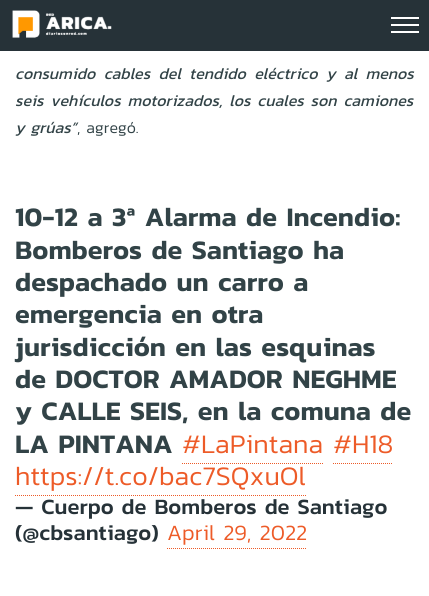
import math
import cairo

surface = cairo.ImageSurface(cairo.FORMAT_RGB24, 429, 596)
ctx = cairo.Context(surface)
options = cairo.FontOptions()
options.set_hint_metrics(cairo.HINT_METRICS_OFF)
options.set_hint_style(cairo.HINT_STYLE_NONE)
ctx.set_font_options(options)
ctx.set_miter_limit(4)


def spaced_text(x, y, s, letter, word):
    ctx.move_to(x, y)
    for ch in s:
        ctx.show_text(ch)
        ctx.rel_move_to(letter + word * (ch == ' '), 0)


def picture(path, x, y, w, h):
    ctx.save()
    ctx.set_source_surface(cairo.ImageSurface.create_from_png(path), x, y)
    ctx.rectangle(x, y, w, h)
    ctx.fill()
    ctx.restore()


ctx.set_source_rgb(1, 1, 1)
ctx.paint()
ctx.set_source_rgb(0.149, 0.196, 0.22)
ctx.rectangle(0, 0, 429, 51)
ctx.fill()
picture("img1.png", 12, 10, 100, 28)
ctx.set_source_rgb(1, 1, 1)
ctx.rectangle(391, 17, 28, 2)
ctx.fill()
ctx.rectangle(391, 24, 28, 2)
ctx.fill()
ctx.rectangle(391, 31, 28, 2)
ctx.fill()
ctx.select_font_face("Kanit", cairo.FONT_SLANT_ITALIC)
ctx.set_font_size(16)
ctx.set_source_rgb(0.196, 0.263, 0.278)
spaced_text(15, 79, "consumido cables del tendido eléctrico y al menos", 0, 2.5)
spaced_text(15, 106, "seis vehículos motorizados, los cuales son camiones", 0, 1)
ctx.move_to(15, 133)
ctx.show_text("y grúas”")
ctx.select_font_face("Kanit Light")
ctx.move_to(77, 133)
ctx.show_text(", agregó.")
ctx.select_font_face("Kanit SemiBold")
ctx.set_font_size(27)
ctx.move_to(15, 226)
ctx.show_text("10-12 a 3ª Alarma de Incendio:")
ctx.move_to(15, 259)
ctx.show_text("Bomberos de Santiago ha")
ctx.move_to(15, 291)
ctx.show_text("despachado un carro a")
ctx.move_to(15, 323)
ctx.show_text("emergencia en otra")
ctx.move_to(15, 356)
ctx.show_text("jurisdicción en las esquinas")
ctx.move_to(15, 388)
ctx.show_text("de DOCTOR AMADOR NEGHME")
ctx.move_to(15, 420)
ctx.show_text("y CALLE SEIS, en la comuna de")
ctx.move_to(15, 453)
ctx.show_text("LA PINTANA")
ctx.select_font_face("Kanit Light")
ctx.set_source_rgb(0.929, 0.357, 0.157)
ctx.move_to(182, 453)
ctx.show_text("#LaPintana")
ctx.new_path()
ctx.move_to(182, 463.5)
ctx.line_to(323, 463.5)
ctx.set_line_width(1)
ctx.set_dash([1, 1])
ctx.stroke()
ctx.move_to(333, 453)
ctx.show_text("#H18")
ctx.new_path()
ctx.move_to(333, 463.5)
ctx.line_to(393, 463.5)
ctx.stroke()
ctx.move_to(15, 485)
ctx.show_text("https://t.co/bac7SQxuOl")
ctx.new_path()
ctx.move_to(15, 495.5)
ctx.line_to(306, 495.5)
ctx.stroke()
ctx.select_font_face("Kanit Medium")
ctx.set_font_size(22)
ctx.set_source_rgb(0.149, 0.196, 0.22)
ctx.move_to(15, 514)
ctx.show_text("— Cuerpo de Bomberos de Santiago")
ctx.move_to(15, 540)
ctx.show_text("(@cbsantiago)")
ctx.select_font_face("Kanit Light")
ctx.set_source_rgb(0.929, 0.357, 0.157)
ctx.move_to(167, 540)
ctx.show_text("April 29, 2022")
ctx.new_path()
ctx.move_to(167, 548.5)
ctx.line_to(307, 548.5)
ctx.stroke()
surface.write_to_png("page.png")
